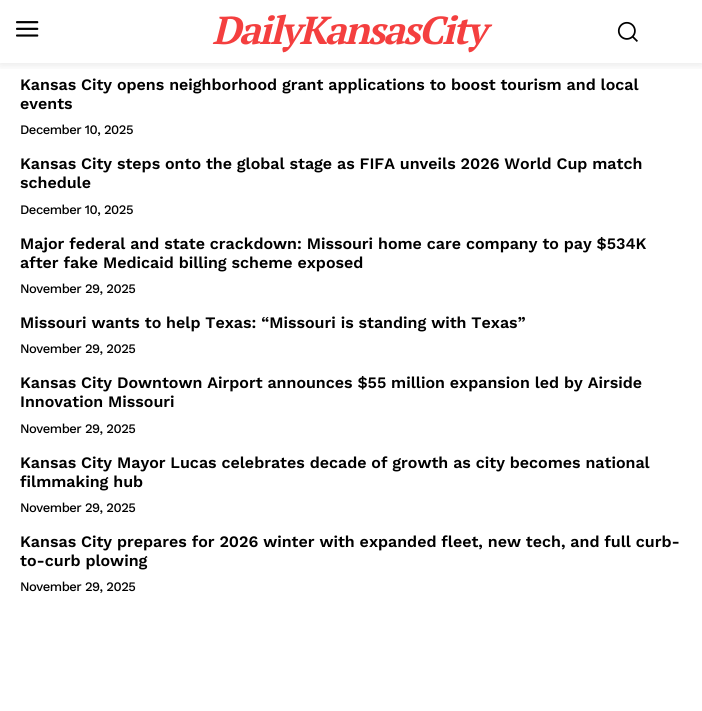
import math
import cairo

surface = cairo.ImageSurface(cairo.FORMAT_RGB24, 702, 711)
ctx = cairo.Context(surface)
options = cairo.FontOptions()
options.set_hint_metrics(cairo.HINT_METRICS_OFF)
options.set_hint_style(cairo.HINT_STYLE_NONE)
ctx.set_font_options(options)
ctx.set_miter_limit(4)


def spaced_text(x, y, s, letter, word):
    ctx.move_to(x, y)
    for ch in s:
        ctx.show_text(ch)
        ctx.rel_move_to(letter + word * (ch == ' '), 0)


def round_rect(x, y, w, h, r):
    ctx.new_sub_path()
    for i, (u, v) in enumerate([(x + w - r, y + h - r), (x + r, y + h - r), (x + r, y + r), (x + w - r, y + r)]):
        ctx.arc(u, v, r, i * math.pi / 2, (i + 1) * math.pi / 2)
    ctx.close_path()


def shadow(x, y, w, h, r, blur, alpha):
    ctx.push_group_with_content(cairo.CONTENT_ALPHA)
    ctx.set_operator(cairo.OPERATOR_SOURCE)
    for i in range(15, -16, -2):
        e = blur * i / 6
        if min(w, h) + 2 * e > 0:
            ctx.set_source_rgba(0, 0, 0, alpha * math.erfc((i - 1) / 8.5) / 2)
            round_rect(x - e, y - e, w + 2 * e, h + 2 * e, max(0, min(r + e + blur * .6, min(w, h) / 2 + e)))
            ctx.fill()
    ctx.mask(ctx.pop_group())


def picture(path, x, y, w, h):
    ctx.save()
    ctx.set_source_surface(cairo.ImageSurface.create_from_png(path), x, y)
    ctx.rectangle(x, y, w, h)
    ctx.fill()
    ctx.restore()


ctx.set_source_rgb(1, 1, 1)
ctx.paint()
picture("img1.png", 16, 21, 23, 16)
picture("img2.png", 617, 21, 21, 21)
ctx.save()
ctx.rectangle(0, 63, 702, 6)
ctx.clip()
ctx.set_source_rgb(0, 0, 0)
shadow(0, 2, 702, 63, 0, 5, 0.09)
ctx.restore()
ctx.select_font_face("PT Serif", cairo.FONT_SLANT_ITALIC, cairo.FONT_WEIGHT_BOLD)
ctx.set_font_size(39)
ctx.set_source_rgb(0.957, 0.247, 0.247)
spaced_text(212, 44, "DailyKansasCity", -2, 0)
ctx.select_font_face("Work Sans SemiBold")
ctx.set_font_size(16)
ctx.set_source_rgb(0, 0, 0)
ctx.move_to(20, 90)
ctx.show_text("Kansas City opens neighborhood grant applications to boost tourism and local")
ctx.move_to(20, 109)
ctx.show_text("events")
ctx.select_font_face("Work Sans Medium")
ctx.set_font_size(13)
spaced_text(20, 134, "December 10, 2025", -0.5, 0)
ctx.select_font_face("Work Sans SemiBold")
ctx.set_font_size(16)
ctx.move_to(20, 169)
ctx.show_text("Kansas City steps onto the global stage as FIFA unveils 2026 World Cup match")
ctx.move_to(20, 188)
ctx.show_text("schedule")
ctx.select_font_face("Work Sans Medium")
ctx.set_font_size(13)
spaced_text(20, 214, "December 10, 2025", -0.5, 0)
ctx.select_font_face("Work Sans SemiBold")
ctx.set_font_size(16)
ctx.move_to(20, 249)
ctx.show_text("Major federal and state crackdown: Missouri home care company to pay $534K")
ctx.move_to(20, 268)
ctx.show_text("after fake Medicaid billing scheme exposed")
ctx.select_font_face("Work Sans Medium")
ctx.set_font_size(13)
spaced_text(20, 293, "November 29, 2025", -0.5, 0)
ctx.select_font_face("Work Sans SemiBold")
ctx.set_font_size(16)
ctx.move_to(20, 328)
ctx.show_text("Missouri wants to help Texas: “Missouri is standing with Texas”")
ctx.select_font_face("Work Sans Medium")
ctx.set_font_size(13)
spaced_text(20, 353, "November 29, 2025", -0.5, 0)
ctx.select_font_face("Work Sans SemiBold")
ctx.set_font_size(16)
ctx.move_to(20, 388)
ctx.show_text("Kansas City Downtown Airport announces $55 million expansion led by Airside")
ctx.move_to(20, 407)
ctx.show_text("Innovation Missouri")
ctx.select_font_face("Work Sans Medium")
ctx.set_font_size(13)
spaced_text(20, 433, "November 29, 2025", -0.5, 0)
ctx.select_font_face("Work Sans SemiBold")
ctx.set_font_size(16)
ctx.move_to(20, 468)
ctx.show_text("Kansas City Mayor Lucas celebrates decade of growth as city becomes national")
ctx.move_to(20, 487)
ctx.show_text("filmmaking hub")
ctx.select_font_face("Work Sans Medium")
ctx.set_font_size(13)
spaced_text(20, 512, "November 29, 2025", -0.5, 0)
ctx.select_font_face("Work Sans SemiBold")
ctx.set_font_size(16)
ctx.move_to(20, 547)
ctx.show_text("Kansas City prepares for 2026 winter with expanded fleet, new tech, and full curb-")
ctx.move_to(20, 566)
ctx.show_text("to-curb plowing")
ctx.select_font_face("Work Sans Medium")
ctx.set_font_size(13)
spaced_text(20, 591, "November 29, 2025", -0.5, 0)
surface.write_to_png("page.png")
